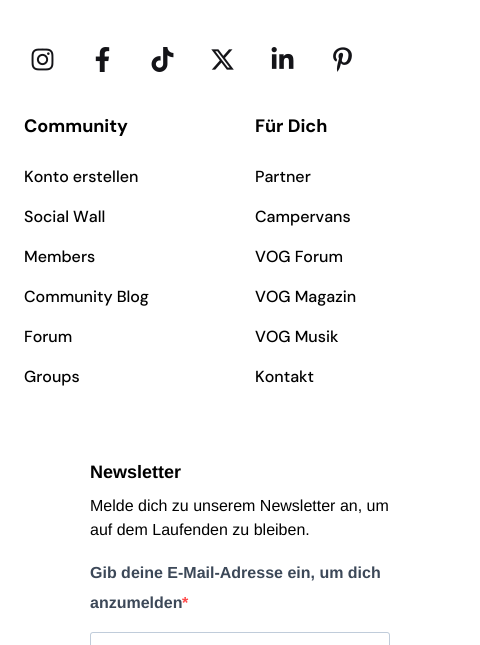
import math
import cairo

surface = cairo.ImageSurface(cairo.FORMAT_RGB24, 480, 645)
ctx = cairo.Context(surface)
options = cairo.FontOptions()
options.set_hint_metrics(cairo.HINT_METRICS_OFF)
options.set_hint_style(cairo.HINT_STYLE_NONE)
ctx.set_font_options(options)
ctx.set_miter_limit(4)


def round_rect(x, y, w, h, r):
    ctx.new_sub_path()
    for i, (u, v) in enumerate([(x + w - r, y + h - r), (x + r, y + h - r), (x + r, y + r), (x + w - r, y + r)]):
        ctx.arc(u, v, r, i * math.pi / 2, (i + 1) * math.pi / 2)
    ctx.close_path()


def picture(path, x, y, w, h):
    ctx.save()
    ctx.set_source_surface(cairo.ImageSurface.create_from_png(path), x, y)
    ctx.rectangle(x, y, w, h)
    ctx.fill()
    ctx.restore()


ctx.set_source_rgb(1, 1, 1)
ctx.paint()
picture("img1.png", 31, 48, 23, 23)
picture("img2.png", 95, 47, 15, 25)
picture("img3.png", 151, 47, 23, 25)
picture("img4.png", 211, 49, 23, 21)
picture("img5.png", 271, 47, 23, 22)
picture("img6.png", 333, 47, 19, 25)
ctx.select_font_face("DM Sans", cairo.FONT_SLANT_NORMAL, cairo.FONT_WEIGHT_BOLD)
ctx.set_font_size(18)
ctx.set_source_rgb(0, 0, 0)
ctx.move_to(24, 132)
ctx.show_text("Community")
ctx.select_font_face("DM Sans Medium")
ctx.set_font_size(16)
ctx.move_to(24, 182)
ctx.show_text("Konto erstellen")
ctx.move_to(24, 222)
ctx.show_text("Social Wall")
ctx.move_to(24, 262)
ctx.show_text("Members")
ctx.move_to(24, 302)
ctx.show_text("Community Blog")
ctx.move_to(24, 342)
ctx.show_text("Forum")
ctx.move_to(24, 382)
ctx.show_text("Groups")
ctx.select_font_face("DM Sans", cairo.FONT_SLANT_NORMAL, cairo.FONT_WEIGHT_BOLD)
ctx.set_font_size(18)
ctx.move_to(255, 132)
ctx.show_text("Für Dich")
ctx.select_font_face("DM Sans Medium")
ctx.set_font_size(16)
ctx.move_to(255, 182)
ctx.show_text("Partner")
ctx.move_to(255, 222)
ctx.show_text("Campervans")
ctx.move_to(255, 262)
ctx.show_text("VOG Forum")
ctx.move_to(255, 302)
ctx.show_text("VOG Magazin")
ctx.move_to(255, 342)
ctx.show_text("VOG Musik")
ctx.move_to(255, 382)
ctx.show_text("Kontakt")
ctx.select_font_face("Liberation Sans", cairo.FONT_SLANT_NORMAL, cairo.FONT_WEIGHT_BOLD)
ctx.set_font_size(18)
ctx.move_to(90, 478)
ctx.show_text("Newsletter")
ctx.select_font_face("Liberation Sans")
ctx.set_font_size(16)
ctx.move_to(90, 511)
ctx.show_text("Melde dich zu unserem Newsletter an, um")
ctx.move_to(90, 535)
ctx.show_text("auf dem Laufenden zu bleiben.")
ctx.select_font_face("Liberation Sans", cairo.FONT_SLANT_NORMAL, cairo.FONT_WEIGHT_BOLD)
ctx.set_source_rgb(0.235, 0.282, 0.345)
ctx.move_to(90, 578)
ctx.show_text("Gib deine E-Mail-Adresse ein, um dich")
ctx.move_to(90, 608)
ctx.show_text("anzumelden")
ctx.set_source_rgb(1, 0.286, 0.286)
ctx.move_to(182, 608)
ctx.show_text("*")
round_rect(90.5, 632.5, 299, 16, 2.5)
ctx.set_source_rgb(0.753, 0.8, 0.855)
ctx.set_line_width(1)
ctx.stroke()
surface.write_to_png("page.png")
